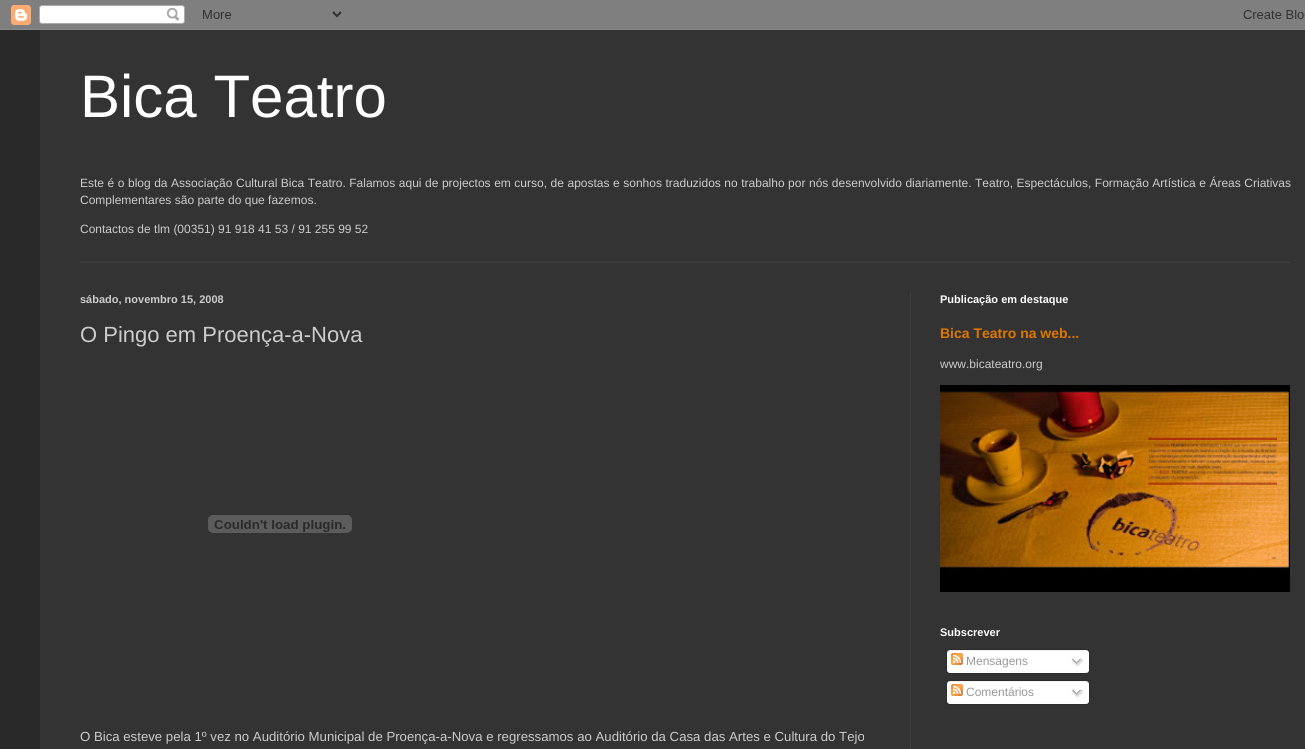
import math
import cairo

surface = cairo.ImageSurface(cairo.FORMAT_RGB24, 1305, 749)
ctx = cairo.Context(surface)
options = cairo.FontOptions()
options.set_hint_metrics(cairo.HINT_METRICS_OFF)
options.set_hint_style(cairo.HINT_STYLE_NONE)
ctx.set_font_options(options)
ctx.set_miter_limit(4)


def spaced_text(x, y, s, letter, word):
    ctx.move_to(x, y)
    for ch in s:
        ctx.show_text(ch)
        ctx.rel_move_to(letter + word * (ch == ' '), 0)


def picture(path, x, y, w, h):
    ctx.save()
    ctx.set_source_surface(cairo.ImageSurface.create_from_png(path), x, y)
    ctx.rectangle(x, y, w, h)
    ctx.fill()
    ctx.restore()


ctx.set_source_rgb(0.161, 0.161, 0.161)
ctx.paint()
picture("img1.png", 0, 0, 1305, 30)
ctx.set_source_rgb(0.2, 0.2, 0.2)
ctx.rectangle(40, 30, 1265, 719)
ctx.fill()
ctx.select_font_face("Liberation Sans")
ctx.set_font_size(60)
ctx.set_source_rgb(1, 1, 1)
ctx.move_to(80, 117)
ctx.show_text("Bica Teatro")
ctx.set_font_size(12)
ctx.set_source_rgb(0.8, 0.8, 0.8)
spaced_text(80, 187, "Este é o blog da Associação Cultural Bica Teatro. Falamos aqui de projectos em curso, de apostas e sonhos traduzidos no trabalho por nós desenvolvido diariamente. Teatro, Espectáculos, Formação Artística e Áreas Criativas", 0, 0.2)
ctx.move_to(80, 204)
ctx.show_text("Complementares são parte do que fazemos.")
ctx.move_to(80, 233)
ctx.show_text("Contactos de tlm (00351) 91 918 41 53 / 91 255 99 52")
ctx.set_source_rgb(0.251, 0.251, 0.251)
ctx.rectangle(80, 262, 1210, 1)
ctx.fill()
ctx.rectangle(910, 293, 1, 456)
ctx.fill()
ctx.select_font_face("Liberation Sans", cairo.FONT_SLANT_NORMAL, cairo.FONT_WEIGHT_BOLD)
ctx.set_font_size(11)
ctx.set_source_rgb(0.8, 0.8, 0.8)
ctx.move_to(80, 303)
ctx.show_text("sábado, novembro 15, 2008")
ctx.select_font_face("Liberation Sans")
ctx.set_font_size(22)
ctx.move_to(80, 342)
ctx.show_text("O Pingo em Proença-a-Nova")
picture("img2.png", 208, 515, 144, 18)
ctx.set_font_size(13.2)
ctx.move_to(80, 741)
ctx.show_text("O Bica esteve pela 1º vez no Auditório Municipal de Proença-a-Nova e regressamos ao Auditório da Casa das Artes e Cultura do Tejo")
ctx.select_font_face("Liberation Sans", cairo.FONT_SLANT_NORMAL, cairo.FONT_WEIGHT_BOLD)
ctx.set_font_size(11)
ctx.set_source_rgb(1, 1, 1)
ctx.move_to(940, 303)
ctx.show_text("Publicação em destaque")
ctx.set_font_size(14)
ctx.set_source_rgb(0.867, 0.467, 0)
ctx.move_to(940, 338)
ctx.show_text("Bica Teatro na web...")
ctx.select_font_face("Liberation Sans")
ctx.set_font_size(12)
ctx.set_source_rgb(0.8, 0.8, 0.8)
ctx.move_to(940, 368)
ctx.show_text("www.bicateatro.org")
picture("img3.png", 940, 385, 350, 207)
ctx.select_font_face("Liberation Sans", cairo.FONT_SLANT_NORMAL, cairo.FONT_WEIGHT_BOLD)
ctx.set_font_size(11)
ctx.set_source_rgb(1, 1, 1)
ctx.move_to(940, 636)
ctx.show_text("Subscrever")
picture("img4.png", 946, 649, 144, 22)
picture("img5.png", 951, 653, 12, 12)
ctx.select_font_face("Liberation Sans")
ctx.set_font_size(12)
ctx.set_source_rgb(0.6, 0.6, 0.6)
ctx.move_to(966, 665)
ctx.show_text("Mensagens")
picture("img6.png", 1071, 658, 13, 9)
picture("img7.png", 947, 671, 143, 3)
picture("img4.png", 946, 680, 144, 22)
picture("img5.png", 951, 684, 12, 12)
ctx.move_to(966, 696)
ctx.show_text("Comentários")
picture("img6.png", 1071, 689, 13, 9)
picture("img7.png", 947, 702, 143, 3)
surface.write_to_png("page.png")
